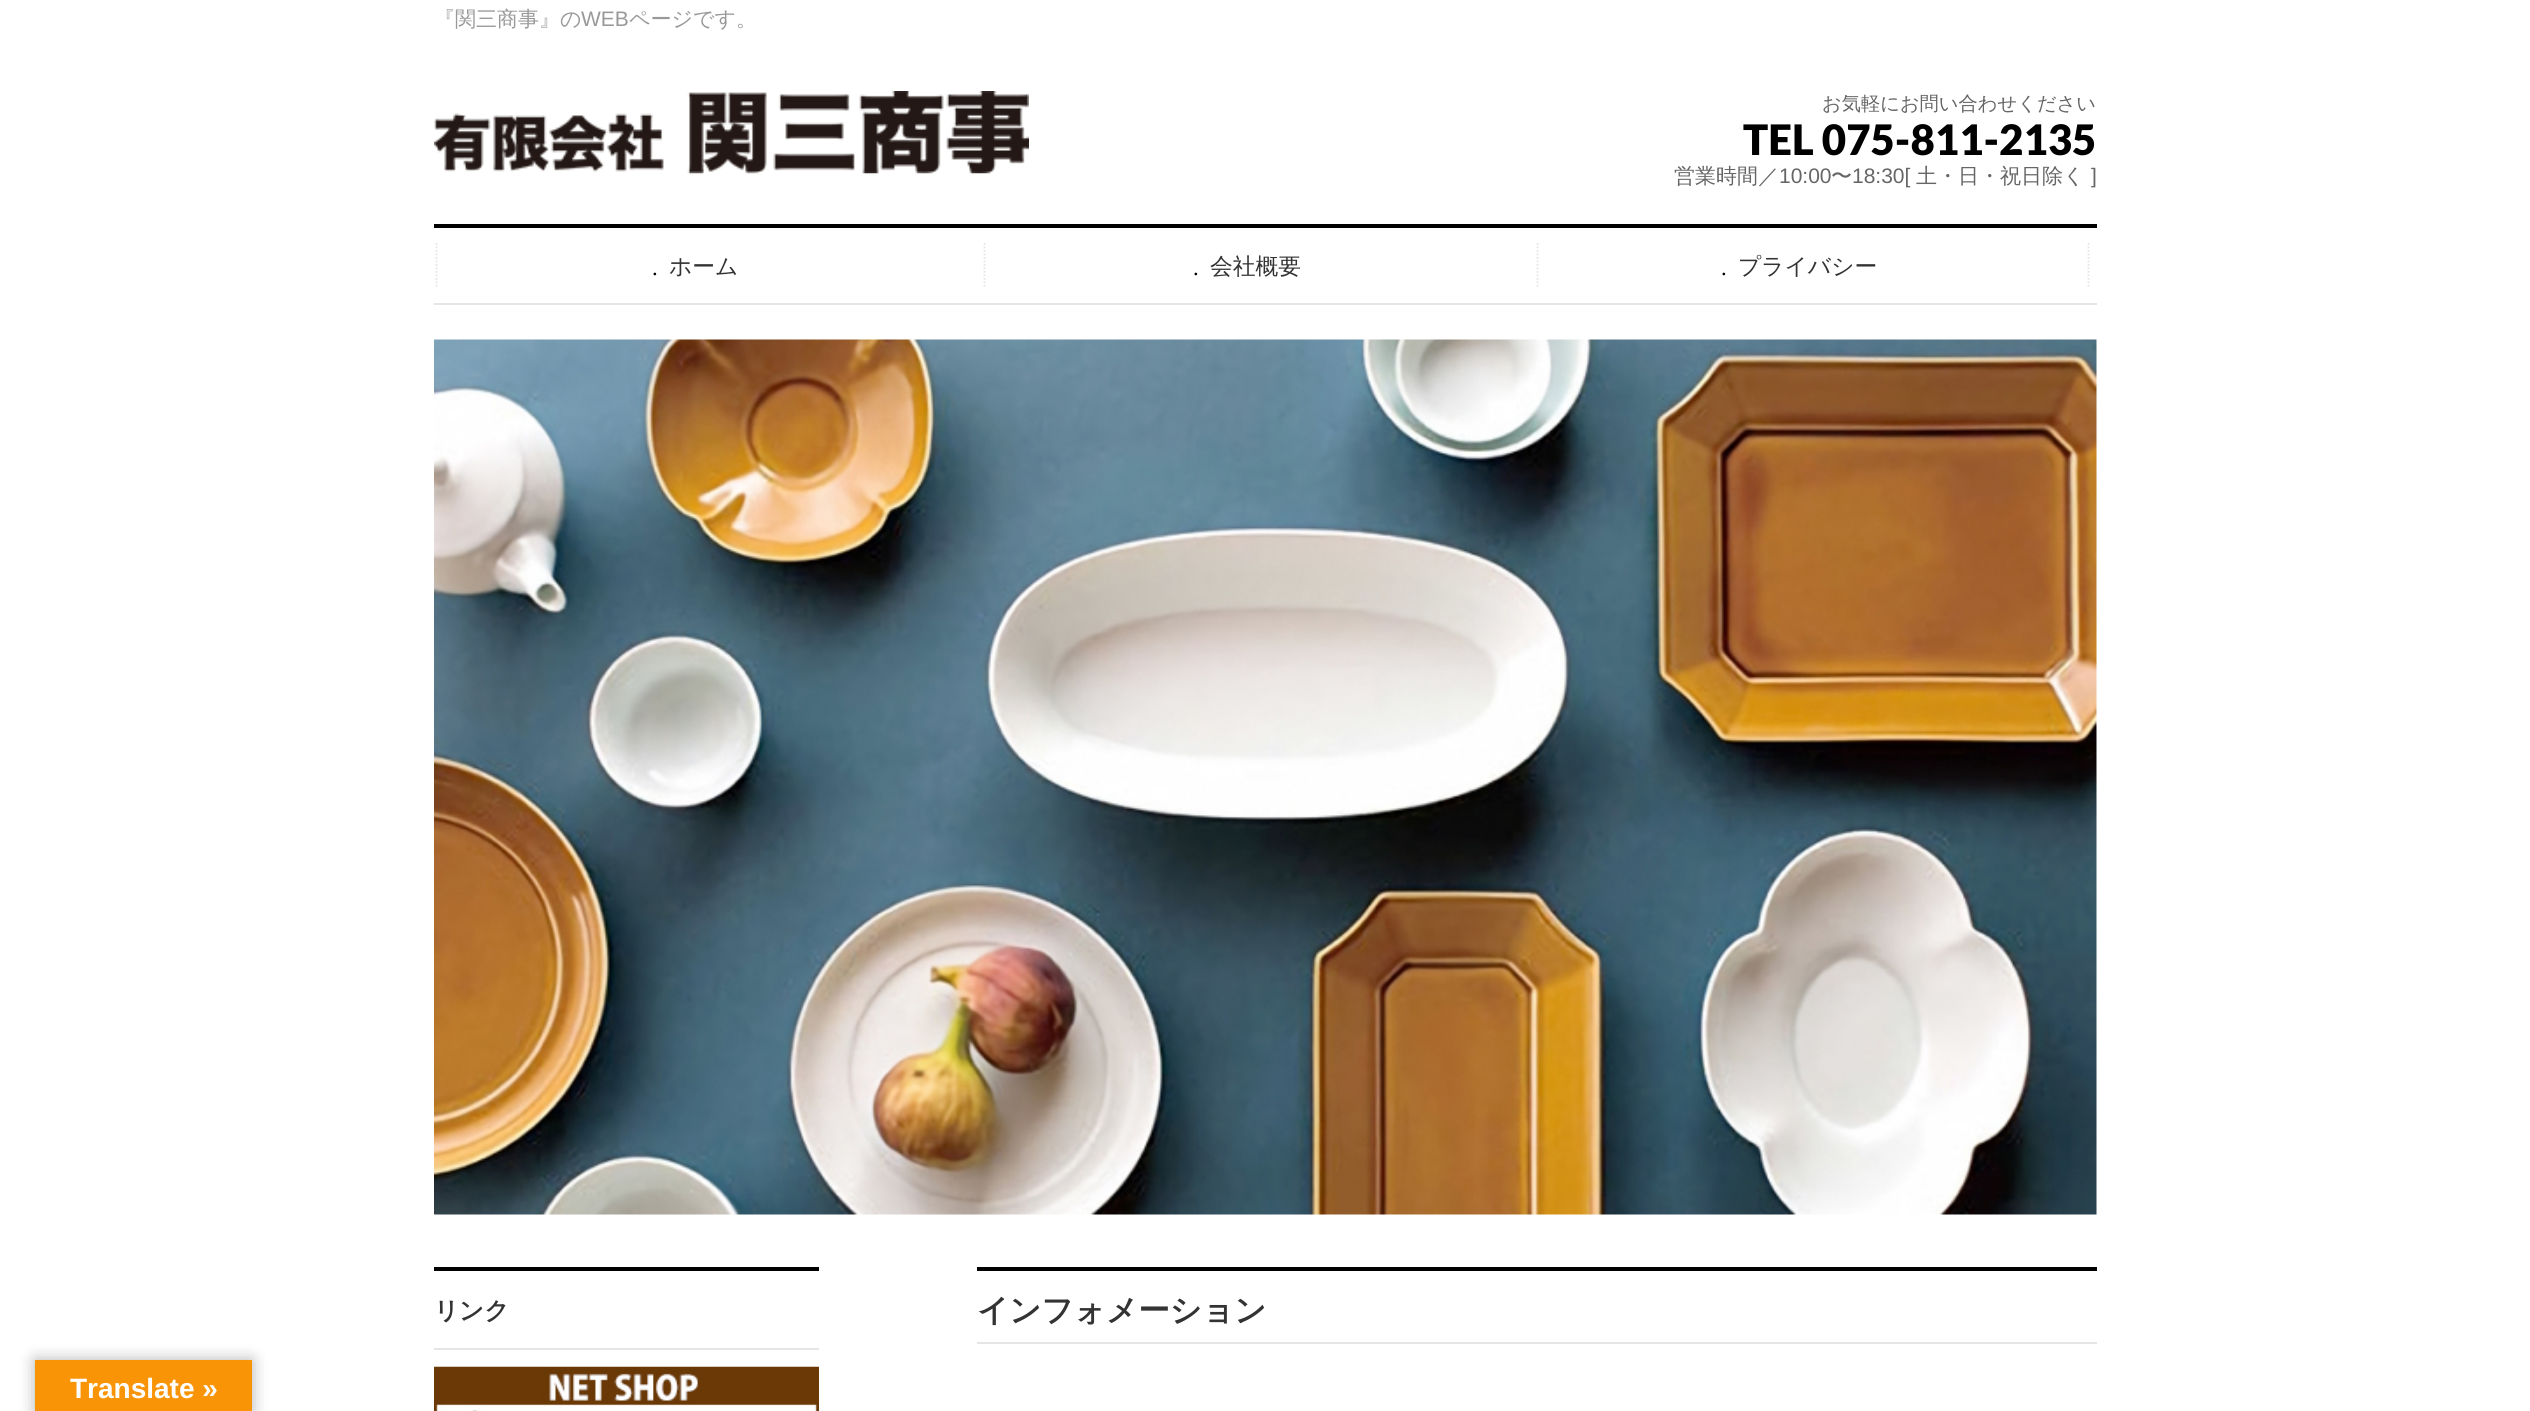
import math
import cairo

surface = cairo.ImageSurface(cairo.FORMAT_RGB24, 2530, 1411)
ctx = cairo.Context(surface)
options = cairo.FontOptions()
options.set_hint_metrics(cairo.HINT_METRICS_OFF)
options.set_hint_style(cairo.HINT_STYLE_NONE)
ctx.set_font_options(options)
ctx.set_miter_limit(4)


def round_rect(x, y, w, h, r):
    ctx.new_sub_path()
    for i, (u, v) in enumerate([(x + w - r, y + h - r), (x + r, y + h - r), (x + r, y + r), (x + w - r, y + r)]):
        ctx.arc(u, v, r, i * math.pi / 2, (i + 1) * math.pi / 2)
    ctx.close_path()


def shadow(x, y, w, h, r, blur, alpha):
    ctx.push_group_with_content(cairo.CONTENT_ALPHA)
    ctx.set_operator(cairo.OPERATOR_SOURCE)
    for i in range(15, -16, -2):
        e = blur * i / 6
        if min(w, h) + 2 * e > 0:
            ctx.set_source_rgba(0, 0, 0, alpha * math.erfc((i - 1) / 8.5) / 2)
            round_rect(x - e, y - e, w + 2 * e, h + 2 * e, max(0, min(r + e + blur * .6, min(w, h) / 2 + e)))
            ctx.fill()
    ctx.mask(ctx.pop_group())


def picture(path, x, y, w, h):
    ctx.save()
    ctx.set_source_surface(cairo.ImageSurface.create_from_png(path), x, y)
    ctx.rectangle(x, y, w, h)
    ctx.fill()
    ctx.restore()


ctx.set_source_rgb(1, 1, 1)
ctx.paint()
ctx.select_font_face("WenQuanYi Zen Hei Medium")
ctx.set_font_size(21)
ctx.set_source_rgb(0.6, 0.6, 0.6)
ctx.move_to(434, 26)
ctx.show_text("『関三商事』の")
ctx.select_font_face("Liberation Sans")
ctx.move_to(581, 26)
ctx.show_text("WEB")
ctx.select_font_face("WenQuanYi Zen Hei Medium")
ctx.move_to(629, 26)
ctx.show_text("ページです。")
picture("img1.png", 434, 91, 595, 83)
ctx.set_font_size(19.25)
ctx.set_source_rgb(0.4, 0.4, 0.4)
ctx.move_to(1822, 110)
ctx.show_text("お気軽にお問い合わせください")
ctx.select_font_face("Lato Black")
ctx.set_font_size(42)
ctx.set_source_rgb(0, 0, 0)
ctx.move_to(1743, 155)
ctx.show_text("TEL 075-811-2135")
ctx.select_font_face("WenQuanYi Zen Hei Medium")
ctx.set_font_size(21)
ctx.set_source_rgb(0.4, 0.4, 0.4)
ctx.move_to(1674, 183)
ctx.show_text("営業時間／")
ctx.select_font_face("Liberation Sans")
ctx.move_to(1779, 183)
ctx.show_text("10:00")
ctx.select_font_face("WenQuanYi Zen Hei Medium")
ctx.move_to(1831, 183)
ctx.show_text("〜")
ctx.select_font_face("Liberation Sans")
ctx.move_to(1852, 183)
ctx.show_text("18:30[")
ctx.select_font_face("WenQuanYi Zen Hei Medium")
ctx.move_to(1916, 183)
ctx.show_text("土・日・祝日除く")
ctx.select_font_face("Liberation Sans")
ctx.move_to(2091, 183)
ctx.show_text("]")
ctx.set_source_rgb(0, 0, 0)
ctx.rectangle(434, 224, 1663, 4)
ctx.fill()
ctx.set_source_rgb(0.898, 0.898, 0.898)
ctx.rectangle(434, 303, 1663, 2)
ctx.fill()
ctx.new_path()
ctx.move_to(436.5, 243)
ctx.line_to(436.5, 287)
ctx.set_line_width(1.8)
ctx.set_dash([1.75, 1.75])
ctx.stroke()
ctx.select_font_face("Liberation Serif")
ctx.set_font_size(22.75)
ctx.set_source_rgb(0, 0, 0)
ctx.move_to(652, 275)
ctx.show_text(".")
ctx.select_font_face("WenQuanYi Zen Hei Medium")
ctx.set_source_rgb(0.2, 0.2, 0.2)
ctx.move_to(669, 274)
ctx.show_text("ホーム")
ctx.new_path()
ctx.move_to(984.5, 243)
ctx.line_to(984.5, 287)
ctx.set_source_rgb(0.898, 0.898, 0.898)
ctx.stroke()
ctx.select_font_face("Liberation Serif")
ctx.set_source_rgb(0, 0, 0)
ctx.move_to(1193, 275)
ctx.show_text(".")
ctx.select_font_face("WenQuanYi Zen Hei Medium")
ctx.set_source_rgb(0.2, 0.2, 0.2)
ctx.move_to(1210, 274)
ctx.show_text("会社概要")
ctx.new_path()
ctx.move_to(1537.5, 243)
ctx.line_to(1537.5, 287)
ctx.set_source_rgb(0.898, 0.898, 0.898)
ctx.stroke()
ctx.select_font_face("Liberation Serif")
ctx.set_source_rgb(0, 0, 0)
ctx.move_to(1721, 275)
ctx.show_text(".")
ctx.select_font_face("WenQuanYi Zen Hei Medium")
ctx.set_source_rgb(0.2, 0.2, 0.2)
ctx.move_to(1738, 274)
ctx.show_text("プライバシー")
ctx.new_path()
ctx.move_to(2088.5, 243)
ctx.line_to(2088.5, 287)
ctx.set_source_rgb(0.898, 0.898, 0.898)
ctx.stroke()
picture("img2.png", 434, 339, 1663, 876)
ctx.set_source_rgb(0, 0, 0)
ctx.rectangle(434, 1267, 385, 4)
ctx.fill()
ctx.set_source_rgb(0.898, 0.898, 0.898)
ctx.rectangle(434, 1348, 385, 2)
ctx.fill()
ctx.select_font_face("WenQuanYi Zen Hei", cairo.FONT_SLANT_NORMAL, cairo.FONT_WEIGHT_BOLD)
ctx.set_font_size(24.5)
ctx.set_source_rgb(0.2, 0.2, 0.2)
ctx.move_to(434, 1319)
ctx.show_text("リンク")
picture("img3.png", 434, 1366, 385, 45)
ctx.set_source_rgb(0, 0, 0)
ctx.rectangle(977, 1267, 1120, 4)
ctx.fill()
ctx.set_source_rgb(0.898, 0.898, 0.898)
ctx.rectangle(977, 1342, 1120, 2)
ctx.fill()
ctx.set_font_size(31.5)
ctx.set_source_rgb(0.2, 0.2, 0.2)
ctx.move_to(977, 1321)
ctx.show_text("インフォメーション")
ctx.set_source_rgb(0, 0, 0)
shadow(35, 1360, 217, 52, 0, 8, 0.3)
ctx.set_source_rgb(0.973, 0.58, 0.024)
ctx.rectangle(35, 1360, 217, 51)
ctx.fill()
ctx.select_font_face("Liberation Sans", cairo.FONT_SLANT_NORMAL, cairo.FONT_WEIGHT_BOLD)
ctx.set_font_size(28)
ctx.set_source_rgb(1, 1, 1)
ctx.move_to(70, 1398)
ctx.show_text("Translate »")
surface.write_to_png("page.png")
